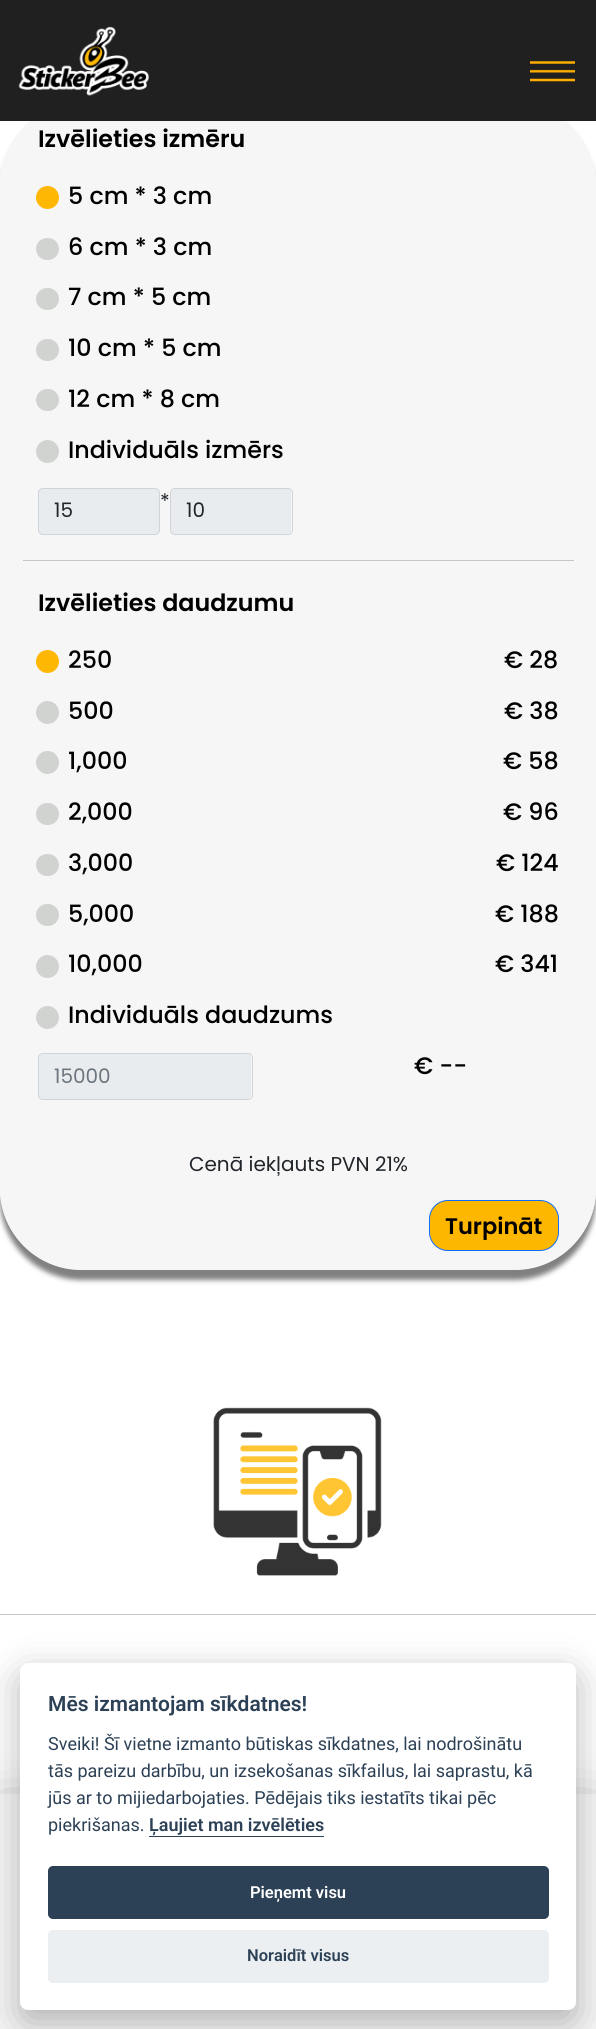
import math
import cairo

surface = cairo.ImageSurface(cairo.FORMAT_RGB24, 596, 2029)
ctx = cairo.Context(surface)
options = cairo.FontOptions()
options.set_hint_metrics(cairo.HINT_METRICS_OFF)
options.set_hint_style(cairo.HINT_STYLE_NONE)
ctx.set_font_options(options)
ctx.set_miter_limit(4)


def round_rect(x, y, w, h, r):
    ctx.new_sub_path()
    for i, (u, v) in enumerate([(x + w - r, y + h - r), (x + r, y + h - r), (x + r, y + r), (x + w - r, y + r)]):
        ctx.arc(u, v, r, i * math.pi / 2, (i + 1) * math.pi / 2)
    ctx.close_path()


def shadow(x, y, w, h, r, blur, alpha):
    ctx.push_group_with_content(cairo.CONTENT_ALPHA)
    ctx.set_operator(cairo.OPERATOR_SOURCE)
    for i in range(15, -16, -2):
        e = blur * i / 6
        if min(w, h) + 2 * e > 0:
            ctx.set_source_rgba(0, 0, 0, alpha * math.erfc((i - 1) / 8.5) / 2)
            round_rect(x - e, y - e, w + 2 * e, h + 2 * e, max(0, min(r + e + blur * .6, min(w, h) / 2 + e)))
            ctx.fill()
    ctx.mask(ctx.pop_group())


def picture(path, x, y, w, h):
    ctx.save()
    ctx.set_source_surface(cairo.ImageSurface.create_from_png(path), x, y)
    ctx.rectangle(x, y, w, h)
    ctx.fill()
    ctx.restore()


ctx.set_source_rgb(1, 1, 1)
ctx.paint()
ctx.save()
ctx.set_fill_rule(cairo.FILL_RULE_EVEN_ODD)
ctx.new_path()
ctx.move_to(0, 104)
ctx.line_to(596, 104)
ctx.line_to(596, 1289)
ctx.line_to(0, 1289)
ctx.close_path()
ctx.move_to(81, 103)
ctx.line_to(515, 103)
ctx.curve_to(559.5, 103, 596, 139.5, 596, 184)
ctx.line_to(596, 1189)
ctx.curve_to(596, 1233.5, 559.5, 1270, 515, 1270)
ctx.line_to(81, 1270)
ctx.curve_to(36.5, 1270, 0, 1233.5, 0, 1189)
ctx.line_to(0, 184)
ctx.curve_to(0, 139.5, 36.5, 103, 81, 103)
ctx.close_path()
ctx.clip()
ctx.set_source_rgb(0, 0, 0)
shadow(0, 113, 596, 1167, 81, 2.5, 0.5)
ctx.restore()
ctx.set_source_rgba(0.769, 0.769, 0.769, 0.15)
round_rect(0, 103, 596, 1167, 81)
ctx.fill()
ctx.set_source_rgb(0.125, 0.125, 0.125)
ctx.rectangle(0, 0, 596, 121)
ctx.fill()
picture("img1.png", 18, 26, 131, 70)
picture("img2.png", 530, 61, 45, 21)
ctx.select_font_face("Poppins SemiBold")
ctx.set_font_size(23.8)
ctx.set_source_rgb(0, 0, 0)
ctx.move_to(38, 147)
ctx.show_text("Izvēlieties izmēru")
ctx.set_source_rgb(0.776, 0.776, 0.776)
ctx.rectangle(23, 560, 551, 1)
ctx.fill()
ctx.arc(48, 198, 9.5, 0, 2 * math.pi)
ctx.set_source_rgb(0.996, 0.722, 0.012)
ctx.set_line_width(1)
ctx.stroke()
ctx.arc(47.5, 197.5, 11.5, 0, 2 * math.pi)
ctx.fill()
ctx.select_font_face("Poppins Medium")
ctx.set_source_rgb(0, 0, 0)
ctx.move_to(68, 204)
ctx.show_text("5 cm * 3 cm")
ctx.set_source_rgb(0.82, 0.827, 0.82)
round_rect(36, 238, 23, 22, 11)
ctx.fill()
ctx.set_source_rgb(0, 0, 0)
ctx.move_to(68, 255)
ctx.show_text("6 cm * 3 cm")
ctx.set_source_rgb(0.82, 0.827, 0.82)
round_rect(36, 288, 23, 22, 11)
ctx.fill()
ctx.set_source_rgb(0, 0, 0)
ctx.move_to(68, 305)
ctx.show_text("7 cm * 5 cm")
ctx.set_source_rgb(0.82, 0.827, 0.82)
round_rect(36, 339, 23, 22, 11)
ctx.fill()
ctx.set_source_rgb(0, 0, 0)
ctx.move_to(68, 356)
ctx.show_text("10 cm * 5 cm")
ctx.set_source_rgb(0.82, 0.827, 0.82)
round_rect(36, 389, 23, 22, 11)
ctx.fill()
ctx.set_source_rgb(0, 0, 0)
ctx.move_to(68, 407)
ctx.show_text("12 cm * 8 cm")
ctx.set_source_rgb(0.82, 0.827, 0.82)
ctx.new_path()
ctx.arc(47.5, 451.5, 11.5, 0, 2 * math.pi)
ctx.fill()
ctx.set_source_rgb(0, 0, 0)
ctx.move_to(68, 458)
ctx.show_text("Individuāls izmērs")
ctx.select_font_face("Poppins")
ctx.set_font_size(20)
ctx.set_source_rgb(0.129, 0.145, 0.161)
ctx.move_to(160, 508)
ctx.show_text("*")
ctx.set_source_rgb(0.914, 0.925, 0.937)
round_rect(38.5, 488.5, 121, 46, 4.5)
ctx.fill_preserve()
ctx.set_source_rgb(0.808, 0.831, 0.855)
ctx.stroke()
ctx.set_source_rgb(0.129, 0.145, 0.161)
ctx.move_to(54, 517)
ctx.show_text("15")
ctx.set_source_rgb(0.914, 0.925, 0.937)
round_rect(171, 489, 120, 45, 4)
ctx.fill()
round_rect(170.5, 488.5, 122, 46, 4.5)
ctx.set_source_rgb(0.808, 0.831, 0.855)
ctx.stroke()
ctx.set_source_rgb(0.129, 0.145, 0.161)
ctx.move_to(186, 517)
ctx.show_text("10")
ctx.select_font_face("Poppins SemiBold")
ctx.set_font_size(23.8)
ctx.set_source_rgb(0, 0, 0)
ctx.move_to(38, 611)
ctx.show_text("Izvēlieties daudzumu")
ctx.new_path()
ctx.arc(48, 661, 9.5, 0, 2 * math.pi)
ctx.set_source_rgb(0.996, 0.722, 0.012)
ctx.stroke()
ctx.arc(47.5, 661.5, 11.5, 0, 2 * math.pi)
ctx.fill()
ctx.select_font_face("Poppins Medium")
ctx.set_source_rgb(0, 0, 0)
ctx.move_to(68, 668)
ctx.show_text("250")
ctx.move_to(504, 668)
ctx.show_text("€ 28")
ctx.set_source_rgb(0.82, 0.827, 0.82)
ctx.new_path()
ctx.arc(47.5, 712.5, 11.5, 0, 2 * math.pi)
ctx.fill()
ctx.set_source_rgb(0, 0, 0)
ctx.move_to(68, 719)
ctx.show_text("500")
ctx.move_to(504, 719)
ctx.show_text("€ 38")
ctx.set_source_rgb(0.82, 0.827, 0.82)
ctx.new_path()
ctx.arc(47.5, 762.5, 11.5, 0, 2 * math.pi)
ctx.fill()
ctx.set_source_rgb(0, 0, 0)
ctx.move_to(68, 769)
ctx.show_text("1,000")
ctx.move_to(503, 769)
ctx.show_text("€ 58")
ctx.set_source_rgb(0.82, 0.827, 0.82)
round_rect(36, 803, 23, 22, 11)
ctx.fill()
ctx.set_source_rgb(0, 0, 0)
ctx.move_to(68, 820)
ctx.show_text("2,000")
ctx.move_to(503, 820)
ctx.show_text("€ 96")
ctx.set_source_rgb(0.82, 0.827, 0.82)
round_rect(36, 854, 23, 22, 11)
ctx.fill()
ctx.set_source_rgb(0, 0, 0)
ctx.move_to(68, 871)
ctx.show_text("3,000")
ctx.move_to(496, 871)
ctx.show_text("€ 124")
ctx.set_source_rgb(0.82, 0.827, 0.82)
round_rect(36, 904, 23, 22, 11)
ctx.fill()
ctx.set_source_rgb(0, 0, 0)
ctx.move_to(68, 922)
ctx.show_text("5,000")
ctx.move_to(495, 922)
ctx.show_text("€ 188")
ctx.set_source_rgb(0.82, 0.827, 0.82)
ctx.new_path()
ctx.arc(47.5, 966.5, 11.5, 0, 2 * math.pi)
ctx.fill()
ctx.set_source_rgb(0, 0, 0)
ctx.move_to(68, 972)
ctx.show_text("10,000")
ctx.move_to(495, 972)
ctx.show_text("€ 341")
ctx.set_source_rgb(0.82, 0.827, 0.82)
ctx.new_path()
ctx.arc(47.5, 1017.5, 11.5, 0, 2 * math.pi)
ctx.fill()
ctx.set_source_rgb(0, 0, 0)
ctx.move_to(68, 1023)
ctx.show_text("Individuāls daudzums")
ctx.set_source_rgb(0.914, 0.925, 0.937)
round_rect(39, 1054, 212, 45, 4)
ctx.fill()
round_rect(38.5, 1053.5, 214, 46, 4.5)
ctx.set_source_rgb(0.808, 0.831, 0.855)
ctx.stroke()
ctx.select_font_face("Poppins")
ctx.set_font_size(20)
ctx.set_source_rgb(0.424, 0.459, 0.49)
ctx.move_to(54, 1083)
ctx.show_text("15000")
ctx.select_font_face("Poppins Medium")
ctx.set_font_size(23.8)
ctx.set_source_rgb(0, 0, 0)
ctx.move_to(414, 1074)
ctx.show_text("€ --")
ctx.select_font_face("Poppins")
ctx.set_font_size(20)
ctx.set_source_rgb(0.129, 0.145, 0.161)
ctx.move_to(189, 1171)
ctx.show_text("Cenā iekļauts PVN 21%")
ctx.set_source_rgb(0.996, 0.718, 0)
round_rect(429.5, 1200.5, 129, 50, 18.5)
ctx.fill_preserve()
ctx.set_source_rgb(0.051, 0.431, 0.992)
ctx.stroke()
ctx.select_font_face("Poppins SemiBold")
ctx.set_font_size(22.5)
ctx.set_source_rgb(0, 0, 0)
ctx.move_to(445, 1234)
ctx.show_text("Turpināt")
picture("img3.png", 213, 1407, 169, 169)
ctx.set_source_rgb(0.776, 0.776, 0.776)
ctx.rectangle(0, 1614, 596, 1)
ctx.fill()
ctx.set_source_rgb(0.502, 0.502, 0.502)
shadow(0, 1819, 596, 75, 0, 27.5, 1)
ctx.set_source_rgb(0.961, 0.961, 0.961)
ctx.rectangle(0, 1794, 596, 235)
ctx.fill()
ctx.set_source_rgb(0.008, 0.008, 0.012)
shadow(20, 1675, 556, 348, 8, 19, 0.28)
ctx.set_source_rgb(1, 1, 1)
round_rect(20, 1663, 556, 347, 8)
ctx.fill()
ctx.select_font_face("Roboto SemiBold")
ctx.set_font_size(21)
ctx.set_source_rgb(0.176, 0.255, 0.337)
ctx.move_to(48, 1711)
ctx.show_text("Mēs izmantojam sīkdatnes!")
ctx.select_font_face("Roboto")
ctx.set_font_size(18)
ctx.move_to(48, 1750)
ctx.show_text("Sveiki! Šī vietne izmanto būtiskas sīkdatnes, lai nodrošinātu")
ctx.move_to(48, 1777)
ctx.show_text("tās pareizu darbību, un izsekošanas sīkfailus, lai saprastu, kā")
ctx.move_to(48, 1804)
ctx.show_text("jūs ar to mijiedarbojaties. Pēdējais tiks iestatīts tikai pēc")
ctx.move_to(48, 1831)
ctx.show_text("piekrišanas.")
ctx.select_font_face("Roboto SemiBold")
ctx.move_to(149, 1831)
ctx.show_text("Ļaujiet man izvēlēties")
ctx.rectangle(149, 1836, 175, 1)
ctx.fill()
round_rect(48, 1866, 501, 53, 5)
ctx.fill()
ctx.set_font_size(16.5)
ctx.set_source_rgb(1, 1, 1)
ctx.move_to(250, 1898)
ctx.show_text("Pieņemt visu")
ctx.set_source_rgb(0.918, 0.937, 0.949)
round_rect(48, 1930, 501, 53, 5)
ctx.fill()
ctx.set_source_rgb(0.176, 0.255, 0.337)
ctx.move_to(247, 1961)
ctx.show_text("Noraidīt visus")
surface.write_to_png("page.png")
